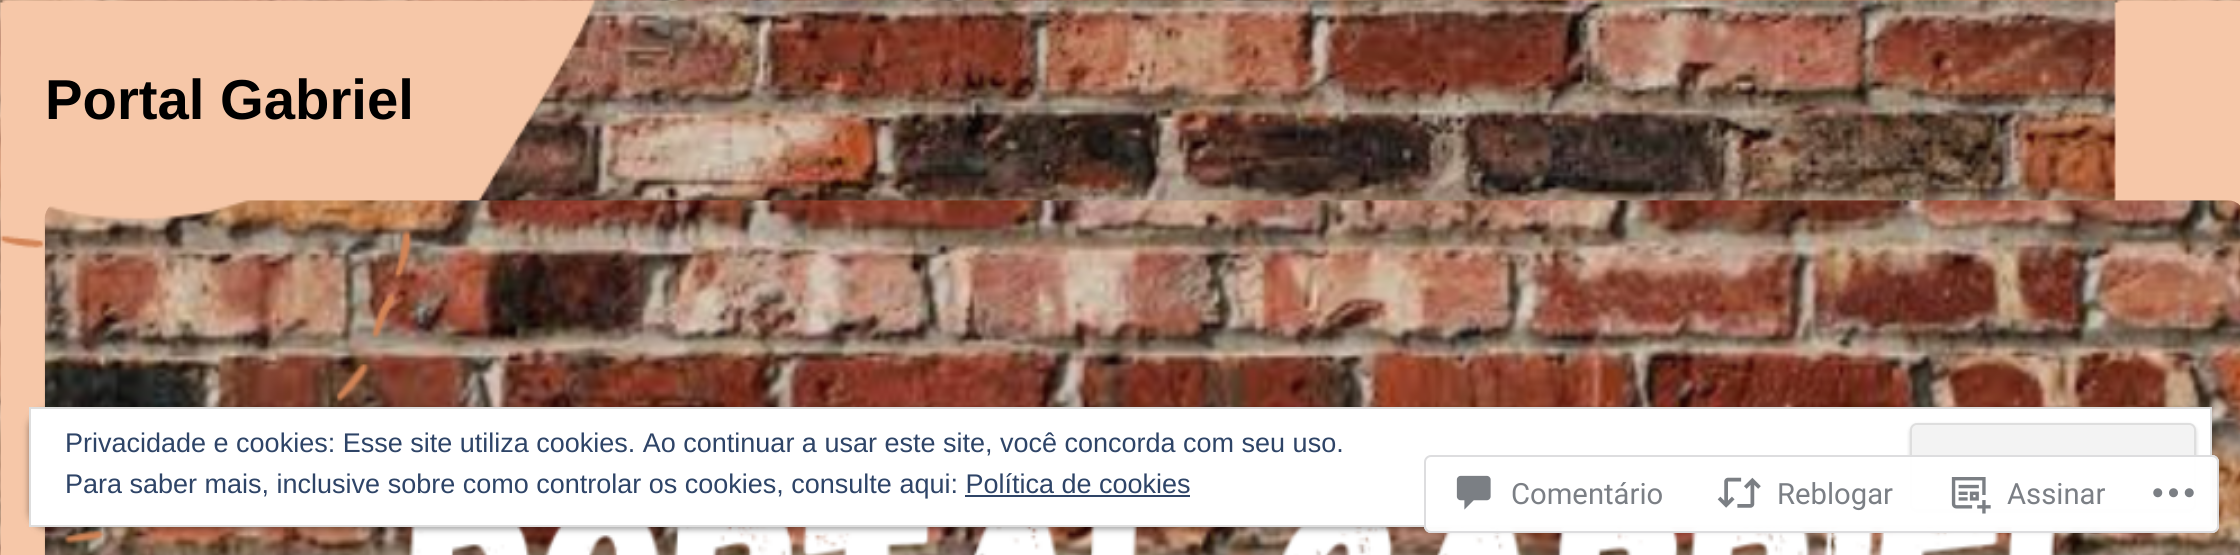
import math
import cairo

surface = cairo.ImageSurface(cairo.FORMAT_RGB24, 2240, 555)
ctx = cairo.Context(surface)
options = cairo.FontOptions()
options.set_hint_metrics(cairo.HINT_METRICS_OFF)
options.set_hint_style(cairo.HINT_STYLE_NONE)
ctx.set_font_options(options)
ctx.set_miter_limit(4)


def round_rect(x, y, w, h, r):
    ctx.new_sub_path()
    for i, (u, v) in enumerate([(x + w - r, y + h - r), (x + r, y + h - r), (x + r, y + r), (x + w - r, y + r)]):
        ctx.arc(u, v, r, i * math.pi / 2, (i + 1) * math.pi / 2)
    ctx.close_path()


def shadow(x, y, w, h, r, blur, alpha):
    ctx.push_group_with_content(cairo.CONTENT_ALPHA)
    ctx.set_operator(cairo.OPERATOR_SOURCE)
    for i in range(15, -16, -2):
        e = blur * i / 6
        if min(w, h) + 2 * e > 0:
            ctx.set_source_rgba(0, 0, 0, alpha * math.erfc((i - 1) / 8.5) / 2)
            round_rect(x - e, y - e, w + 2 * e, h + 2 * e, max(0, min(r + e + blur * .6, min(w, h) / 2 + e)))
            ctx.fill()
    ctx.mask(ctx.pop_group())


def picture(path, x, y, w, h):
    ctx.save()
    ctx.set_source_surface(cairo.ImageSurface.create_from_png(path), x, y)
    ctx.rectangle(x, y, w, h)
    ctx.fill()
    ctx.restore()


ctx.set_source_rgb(1, 1, 1)
ctx.paint()
picture("img1.png", 0, 0, 2240, 555)
ctx.select_font_face("Liberation Sans", cairo.FONT_SLANT_NORMAL, cairo.FONT_WEIGHT_BOLD)
ctx.set_font_size(56.25)
ctx.set_source_rgb(0, 0, 0)
ctx.move_to(45, 119)
ctx.show_text("Portal Gabriel")
ctx.set_source_rgb(0, 0, 0)
shadow(45, 203, 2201, 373, 18, 1, 0.15)
picture("img2.png", 45, 200, 2195, 355)
shadow(29, 410, 2183, 119, 18, 3.5, 0.4)
ctx.set_source_rgb(1, 1, 1)
ctx.rectangle(30, 408, 2181, 118)
ctx.fill_preserve()
ctx.set_source_rgb(0.871, 0.871, 0.871)
ctx.stroke()
ctx.select_font_face("Liberation Sans")
ctx.set_font_size(27)
ctx.set_source_rgb(0.18, 0.267, 0.404)
ctx.move_to(65, 452)
ctx.show_text("Privacidade e cookies: Esse site utiliza cookies. Ao continuar a usar este site, você concorda com seu uso.")
ctx.set_source_rgb(0, 0, 0)
shadow(1910, 425, 286, 88, 7, 2, 0.2)
ctx.set_source_rgb(0.953, 0.953, 0.953)
round_rect(1911, 424, 284, 86, 6)
ctx.fill_preserve()
ctx.set_source_rgb(0.871, 0.871, 0.871)
ctx.stroke()
ctx.set_source_rgb(0.18, 0.267, 0.404)
ctx.move_to(65, 493)
ctx.show_text("Para saber mais, inclusive sobre como controlar os cookies, consulte aqui: Política de cookies")
ctx.rectangle(965, 495, 225, 2)
ctx.fill()
ctx.set_source_rgba(1, 1, 1, 0.98)
round_rect(1424, 455, 795, 78, 7)
ctx.fill()
round_rect(1425, 456, 793, 76, 6)
ctx.set_source_rgba(0.863, 0.863, 0.871, 0.98)
ctx.stroke()
picture("img3.png", 1456, 475, 35, 35)
ctx.select_font_face("Roboto")
ctx.set_font_size(29.25)
ctx.set_source_rgb(0.482, 0.498, 0.522)
ctx.move_to(1511, 504)
ctx.show_text("Comentário")
picture("img4.png", 1717, 477, 44, 31)
ctx.move_to(1777, 504)
ctx.show_text("Reblogar")
picture("img5.png", 1951, 477, 40, 37)
ctx.move_to(2007, 504)
ctx.show_text("Assinar")
picture("img6.png", 2153, 488, 41, 10)
surface.write_to_png("page.png")
